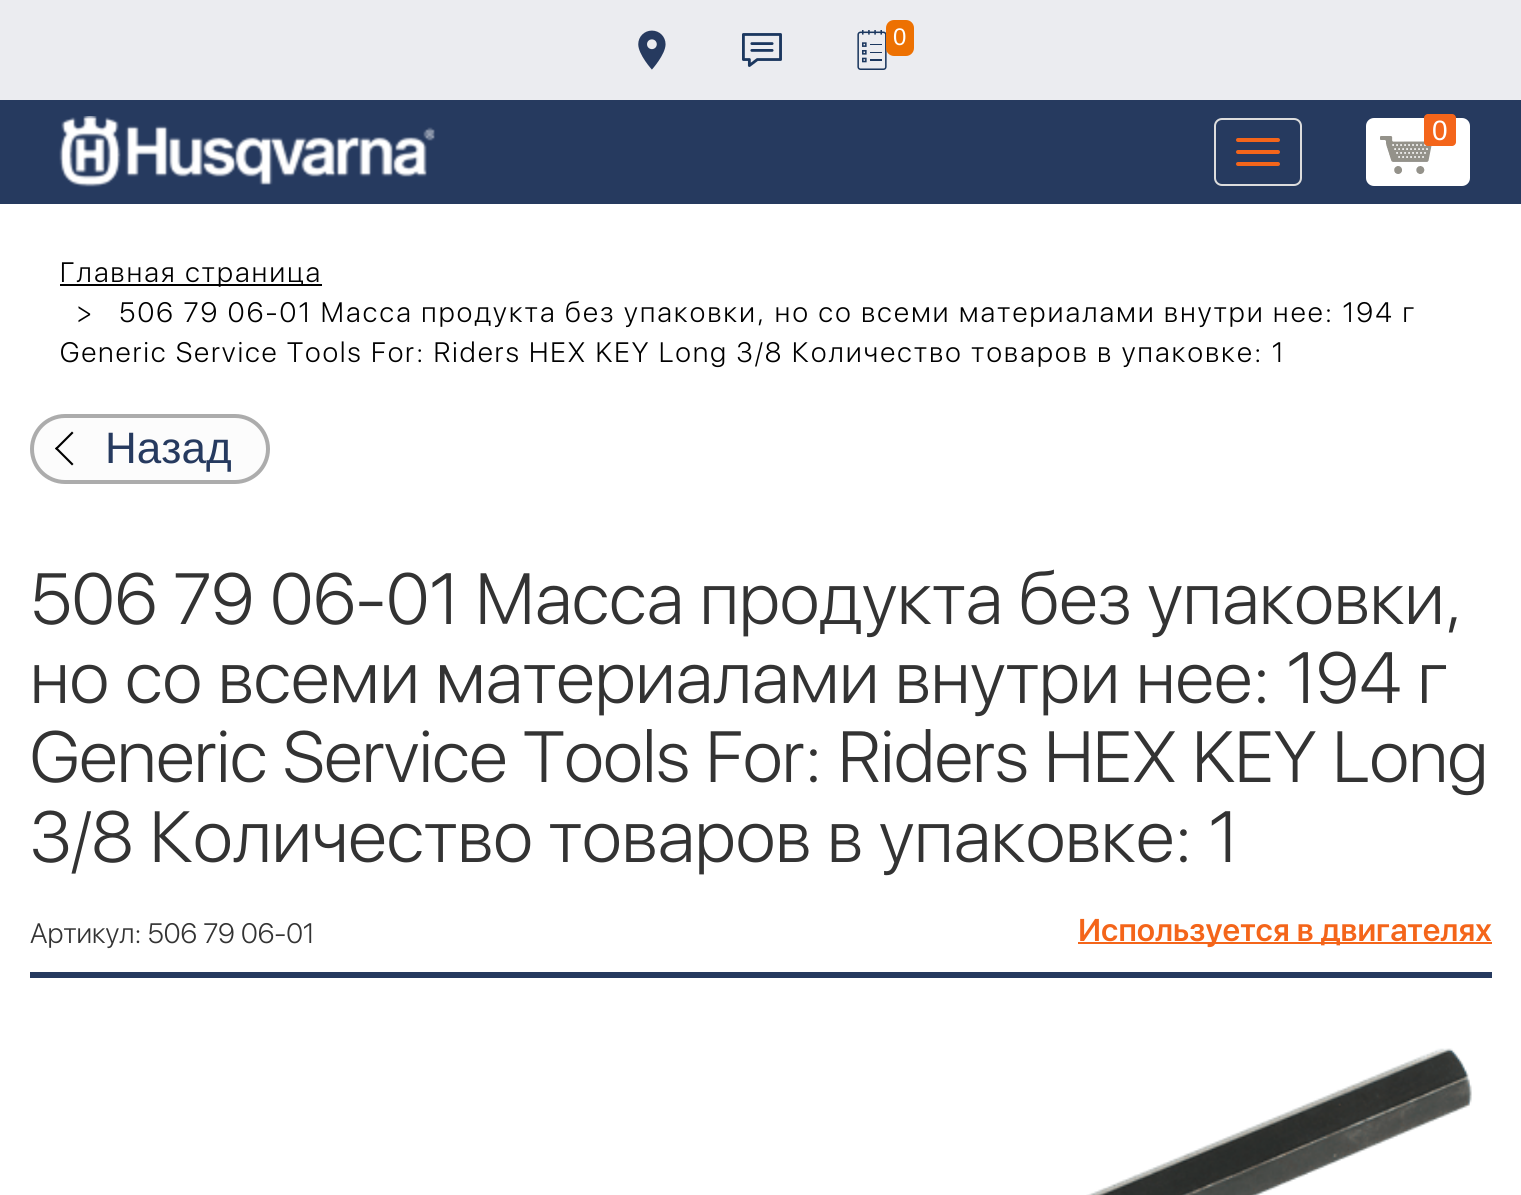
import math
import cairo

surface = cairo.ImageSurface(cairo.FORMAT_RGB24, 1521, 1195)
ctx = cairo.Context(surface)
options = cairo.FontOptions()
options.set_hint_metrics(cairo.HINT_METRICS_OFF)
options.set_hint_style(cairo.HINT_STYLE_NONE)
ctx.set_font_options(options)
ctx.set_miter_limit(4)


def spaced_text(x, y, s, letter, word):
    ctx.move_to(x, y)
    for ch in s:
        ctx.show_text(ch)
        ctx.rel_move_to(letter + word * (ch == ' '), 0)


def round_rect(x, y, w, h, r):
    ctx.new_sub_path()
    for i, (u, v) in enumerate([(x + w - r, y + h - r), (x + r, y + h - r), (x + r, y + r), (x + w - r, y + r)]):
        ctx.arc(u, v, r, i * math.pi / 2, (i + 1) * math.pi / 2)
    ctx.close_path()


def picture(path, x, y, w, h):
    ctx.save()
    ctx.set_source_surface(cairo.ImageSurface.create_from_png(path), x, y)
    ctx.rectangle(x, y, w, h)
    ctx.fill()
    ctx.restore()


ctx.set_source_rgb(1, 1, 1)
ctx.paint()
ctx.set_source_rgb(0.918, 0.925, 0.941)
ctx.rectangle(0, 0, 1521, 100)
ctx.fill()
picture("img1.png", 638, 30, 28, 40)
picture("img2.png", 742, 33, 40, 34)
picture("img3.png", 857, 30, 30, 40)
ctx.set_source_rgb(0.929, 0.443, 0.008)
round_rect(886, 20, 28, 36, 8)
ctx.fill()
ctx.select_font_face("Liberation Sans")
ctx.set_font_size(24)
ctx.set_source_rgb(1, 1, 1)
ctx.move_to(893, 45)
ctx.show_text("0")
ctx.set_source_rgb(0.149, 0.227, 0.373)
ctx.rectangle(0, 100, 1521, 104)
ctx.fill()
picture("img4.png", 59, 116, 376, 71)
round_rect(1215, 119, 86, 66, 7)
ctx.set_source_rgb(0.867, 0.867, 0.867)
ctx.stroke()
ctx.set_source_rgb(0.957, 0.396, 0.102)
round_rect(1236, 138, 44, 4, 2)
ctx.fill()
round_rect(1236, 150, 44, 4, 2)
ctx.fill()
round_rect(1236, 162, 44, 4, 2)
ctx.fill()
ctx.set_source_rgb(1, 1, 1)
round_rect(1366, 118, 104, 68, 8)
ctx.fill()
picture("img5.png", 1380, 136, 52, 38)
ctx.set_source_rgb(0.957, 0.396, 0.102)
round_rect(1424, 114, 32, 32, 4)
ctx.fill()
ctx.set_font_size(28)
ctx.set_source_rgb(1, 1, 1)
ctx.move_to(1432, 140)
ctx.show_text("0")
ctx.set_source_rgb(0, 0, 0)
ctx.rectangle(60, 284, 262, 2)
ctx.fill()
ctx.select_font_face("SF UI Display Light")
spaced_text(60, 282, "Главная страница", 2.2, 0)
spaced_text(76, 322, ">", 2.2, 0)
spaced_text(119, 322, "506 79 06-01 Масса продукта без упаковки, но со всеми материалами внутри нее: 194 г", 2.2, 0)
spaced_text(60, 362, "Generic Service Tools For: Riders HEX KEY Long 3/8 Количество товаров в упаковке: 1", 2.2, 0)
ctx.set_source_rgb(0.988, 0.988, 0.988)
round_rect(32, 416, 236, 66, 33)
ctx.fill_preserve()
ctx.set_source_rgb(0.675, 0.675, 0.675)
ctx.set_line_width(4)
ctx.stroke()
ctx.set_source_rgb(0, 0, 0)
ctx.new_path()
ctx.move_to(55, 448.5)
ctx.line_to(72, 431.5)
ctx.line_to(73.5, 433)
ctx.line_to(56.5, 450)
ctx.close_path()
ctx.fill()
ctx.new_path()
ctx.move_to(55, 448.5)
ctx.line_to(56.5, 447)
ctx.line_to(73.5, 464)
ctx.line_to(72, 465.5)
ctx.close_path()
ctx.fill()
ctx.select_font_face("Liberation Sans")
ctx.set_font_size(44)
ctx.set_source_rgb(0.149, 0.227, 0.373)
ctx.move_to(105, 463)
ctx.show_text("Назад")
ctx.select_font_face("SF UI Display Light")
ctx.set_font_size(72)
ctx.set_source_rgb(0.2, 0.2, 0.2)
ctx.move_to(30, 624)
ctx.show_text("506 79 06-01 Масса продукта без упаковки,")
ctx.move_to(30, 703)
ctx.show_text("но со всеми материалами внутри нее: 194 г")
ctx.move_to(30, 782)
ctx.show_text("Generic Service Tools For: Riders HEX KEY Long")
ctx.move_to(30, 862)
ctx.show_text("3/8 Количество товаров в упаковке: 1")
ctx.set_font_size(28)
ctx.move_to(30, 943)
ctx.show_text("Артикул: 506 79 06-01")
ctx.set_source_rgb(0.957, 0.396, 0.102)
ctx.rectangle(1078, 942, 414, 2)
ctx.fill()
ctx.select_font_face("SF UI Display SemiBold")
ctx.set_font_size(32)
ctx.move_to(1078, 941)
ctx.show_text("Используется в двигателях")
ctx.set_source_rgb(0.149, 0.227, 0.373)
ctx.rectangle(30, 972, 1462, 6)
ctx.fill()
picture("img6.png", 1086, 1048, 386, 147)
surface.write_to_png("page.png")
